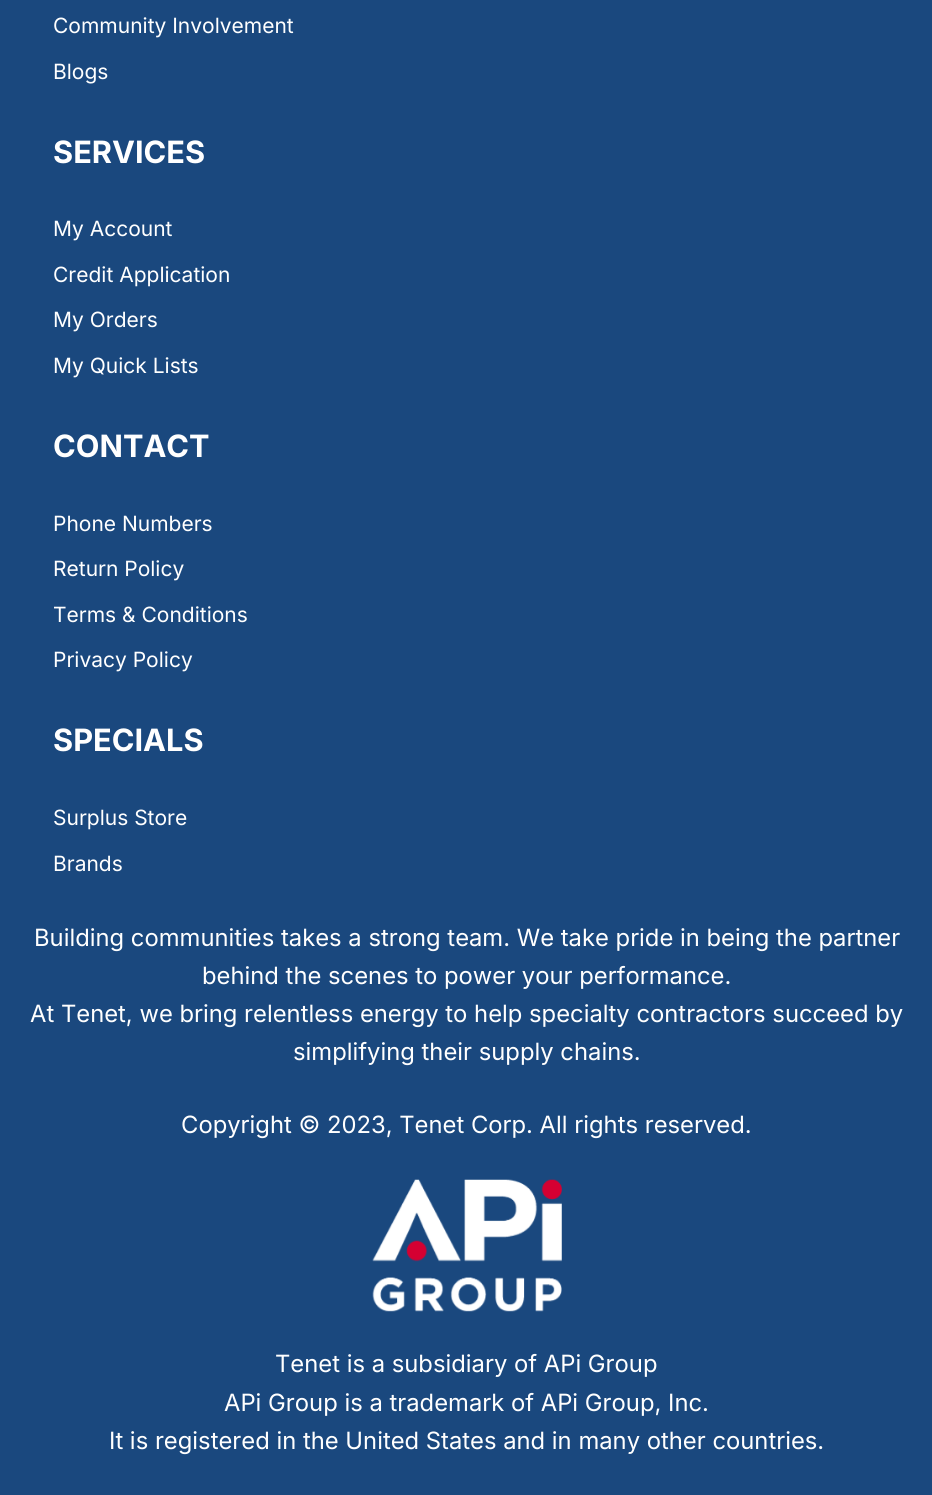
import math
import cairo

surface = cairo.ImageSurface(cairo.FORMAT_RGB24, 932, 1495)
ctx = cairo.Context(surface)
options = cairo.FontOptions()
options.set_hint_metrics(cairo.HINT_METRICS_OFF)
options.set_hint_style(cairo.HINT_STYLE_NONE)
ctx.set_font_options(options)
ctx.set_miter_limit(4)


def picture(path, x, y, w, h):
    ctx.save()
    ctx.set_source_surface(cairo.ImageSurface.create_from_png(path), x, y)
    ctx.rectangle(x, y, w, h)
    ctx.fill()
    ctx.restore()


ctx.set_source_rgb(0.102, 0.282, 0.494)
ctx.paint()
ctx.select_font_face("Inter")
ctx.set_font_size(21)
ctx.set_source_rgb(1, 1, 1)
ctx.move_to(53, 33)
ctx.show_text("Community Involvement")
ctx.move_to(53, 79)
ctx.show_text("Blogs")
ctx.select_font_face("Inter", cairo.FONT_SLANT_NORMAL, cairo.FONT_WEIGHT_BOLD)
ctx.set_font_size(30.75)
ctx.move_to(53, 163)
ctx.show_text("SERVICES")
ctx.select_font_face("Inter")
ctx.set_font_size(21)
ctx.move_to(53, 236)
ctx.show_text("My Account")
ctx.move_to(53, 282)
ctx.show_text("Credit Application")
ctx.move_to(53, 327)
ctx.show_text("My Orders")
ctx.move_to(53, 373)
ctx.show_text("My Quick Lists")
ctx.select_font_face("Inter", cairo.FONT_SLANT_NORMAL, cairo.FONT_WEIGHT_BOLD)
ctx.set_font_size(30.75)
ctx.move_to(53, 457)
ctx.show_text("CONTACT")
ctx.select_font_face("Inter")
ctx.set_font_size(21)
ctx.move_to(53, 531)
ctx.show_text("Phone Numbers")
ctx.move_to(53, 576)
ctx.show_text("Return Policy")
ctx.move_to(53, 622)
ctx.show_text("Terms & Conditions")
ctx.move_to(53, 667)
ctx.show_text("Privacy Policy")
ctx.select_font_face("Inter", cairo.FONT_SLANT_NORMAL, cairo.FONT_WEIGHT_BOLD)
ctx.set_font_size(30.75)
ctx.move_to(53, 751)
ctx.show_text("SPECIALS")
ctx.select_font_face("Inter")
ctx.set_font_size(21)
ctx.move_to(53, 825)
ctx.show_text("Surplus Store")
ctx.move_to(53, 871)
ctx.show_text("Brands")
ctx.set_font_size(23.8)
ctx.move_to(34, 946)
ctx.show_text("Building communities takes a strong team. We take pride in being the partner")
ctx.move_to(202, 984)
ctx.show_text("behind the scenes to power your performance.")
ctx.move_to(30, 1022)
ctx.show_text("At Tenet, we bring relentless energy to help specialty contractors succeed by")
ctx.move_to(293, 1060)
ctx.show_text("simplifying their supply chains.")
ctx.move_to(181, 1133)
ctx.show_text("Copyright © 2023, Tenet Corp. All rights reserved.")
picture("img1.png", 372, 1179, 190, 133)
ctx.move_to(275, 1372)
ctx.show_text("Tenet is a subsidiary of APi Group")
ctx.move_to(224, 1411)
ctx.show_text("APi Group is a trademark of APi Group, Inc.")
ctx.move_to(109, 1449)
ctx.show_text("It is registered in the United States and in many other countries.")
surface.write_to_png("page.png")
